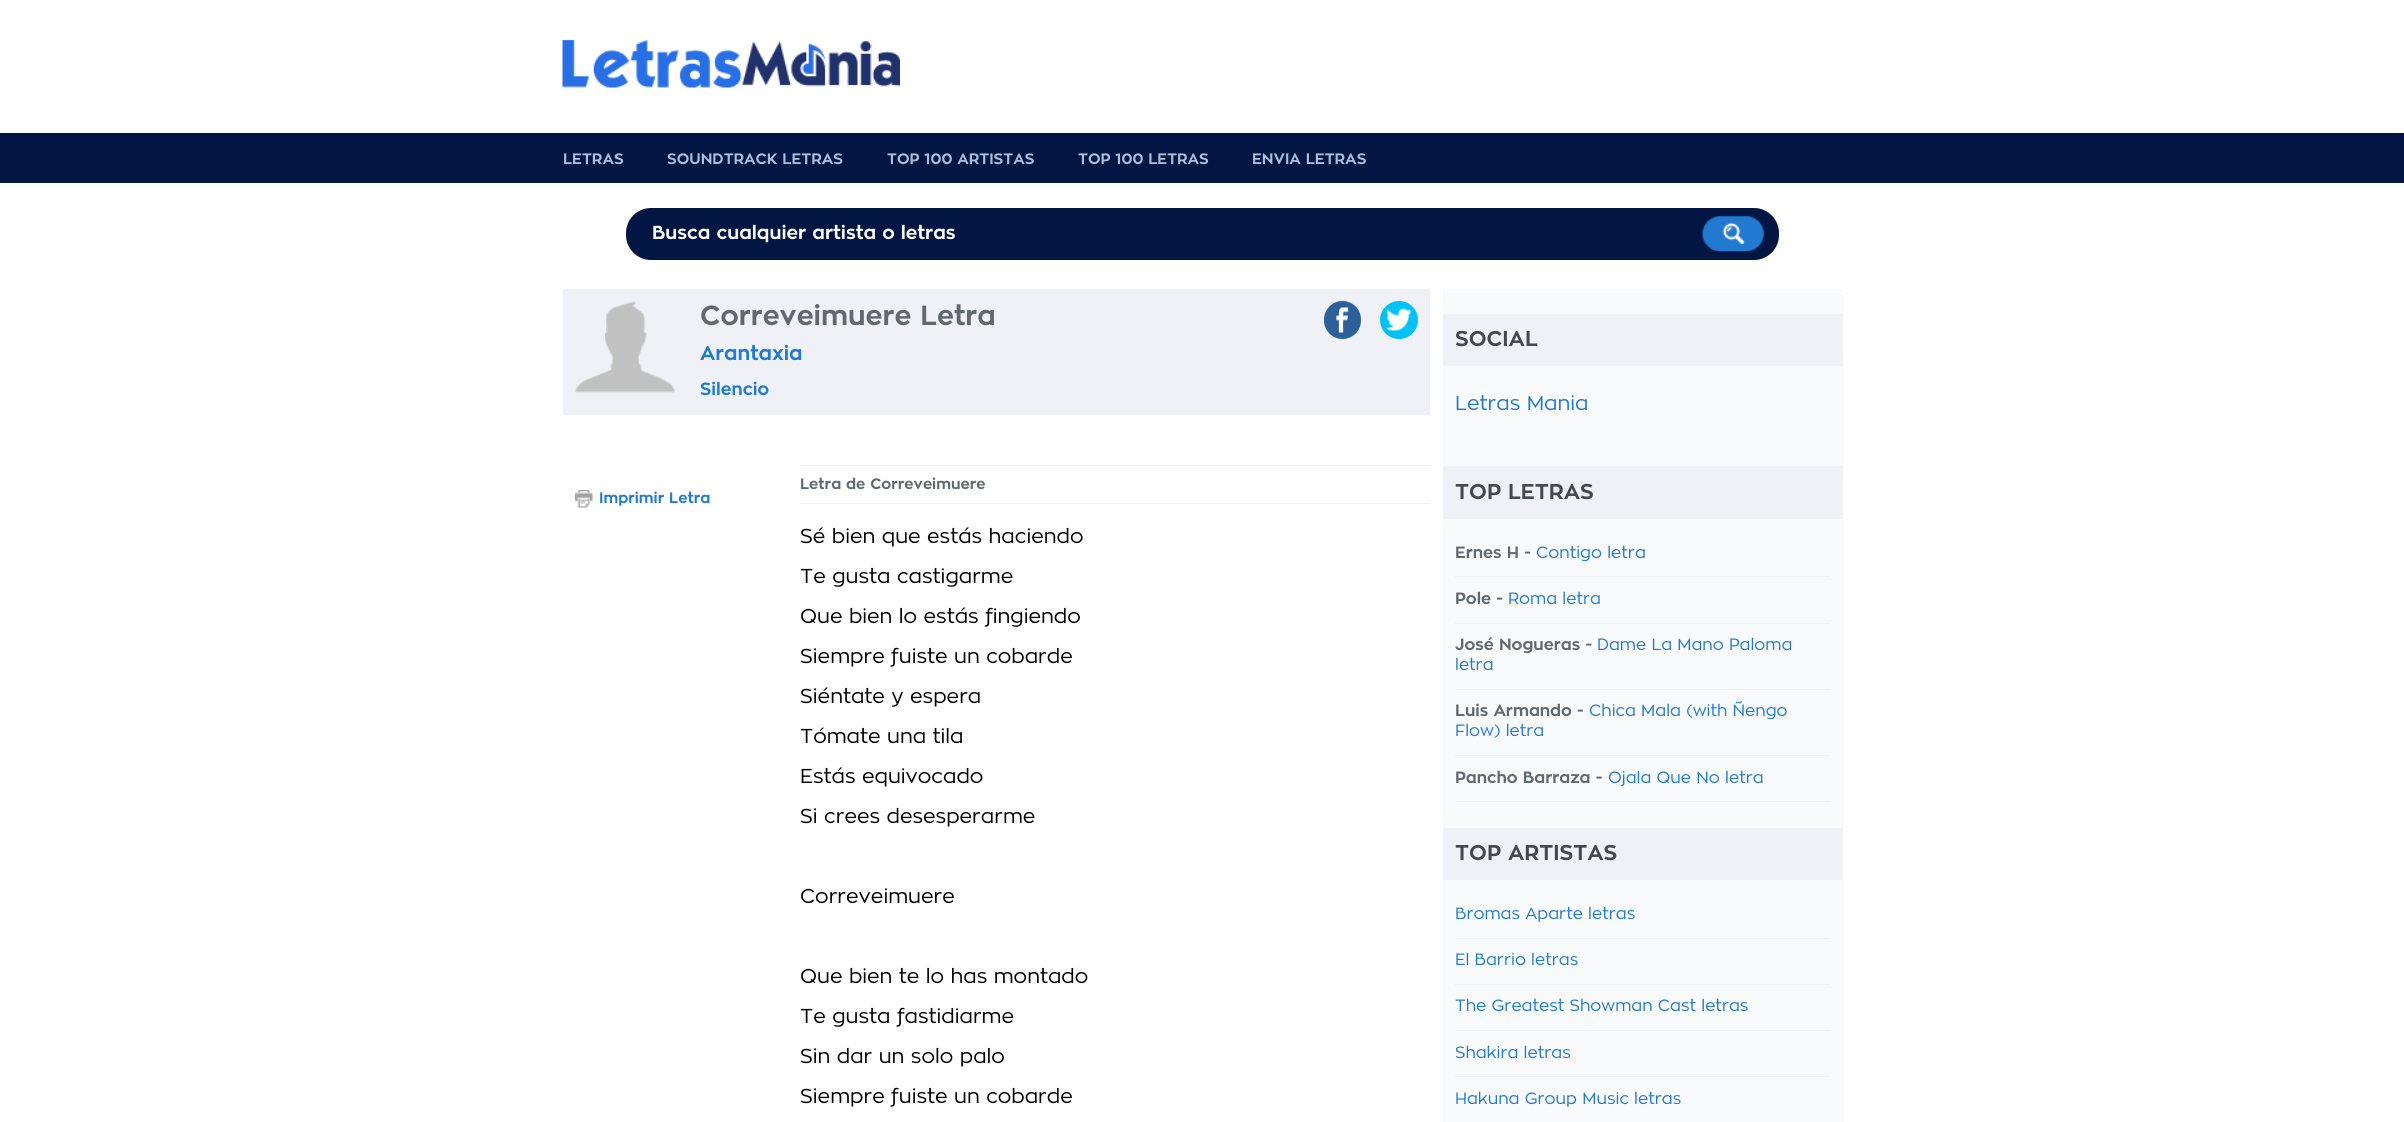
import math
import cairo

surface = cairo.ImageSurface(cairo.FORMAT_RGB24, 2404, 1122)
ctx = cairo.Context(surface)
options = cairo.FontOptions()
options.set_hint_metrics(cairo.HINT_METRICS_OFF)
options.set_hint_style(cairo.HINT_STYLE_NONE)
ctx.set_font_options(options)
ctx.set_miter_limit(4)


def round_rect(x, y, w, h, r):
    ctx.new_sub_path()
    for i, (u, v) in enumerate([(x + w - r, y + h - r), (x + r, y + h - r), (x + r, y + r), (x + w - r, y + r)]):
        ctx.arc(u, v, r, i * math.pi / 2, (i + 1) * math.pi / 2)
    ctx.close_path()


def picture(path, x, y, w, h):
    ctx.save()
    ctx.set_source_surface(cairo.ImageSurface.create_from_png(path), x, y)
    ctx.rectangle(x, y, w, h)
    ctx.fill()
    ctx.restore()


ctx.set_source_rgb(1, 1, 1)
ctx.paint()
picture("img1.png", 562, 39, 338, 49)
ctx.set_source_rgb(0.008, 0.086, 0.263)
ctx.rectangle(0, 133, 2404, 50)
ctx.fill()
ctx.select_font_face("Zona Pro", cairo.FONT_SLANT_NORMAL, cairo.FONT_WEIGHT_BOLD)
ctx.set_font_size(15)
ctx.set_source_rgb(0.651, 0.761, 0.867)
ctx.move_to(563, 164)
ctx.show_text("LETRAS")
ctx.move_to(667, 164)
ctx.show_text("SOUNDTRACK LETRAS")
ctx.move_to(887, 164)
ctx.show_text("TOP 100 ARTISTAS")
ctx.move_to(1078, 164)
ctx.show_text("TOP 100 LETRAS")
ctx.move_to(1252, 164)
ctx.show_text("ENVIA LETRAS")
ctx.set_source_rgb(0.008, 0.086, 0.263)
round_rect(626, 208, 1153, 52, 25)
ctx.fill()
ctx.set_font_size(18.75)
ctx.set_source_rgb(1, 1, 1)
ctx.move_to(652, 239)
ctx.show_text("Busca cualquier artista o letras")
picture("img2.png", 1702, 216, 62, 36)
ctx.set_source_rgb(0.937, 0.945, 0.961)
ctx.rectangle(563, 289, 867, 126)
ctx.fill()
picture("img3.png", 575, 301, 100, 92)
ctx.set_source_rgb(0.945, 0.945, 0.945)
ctx.rectangle(700, 401, 718, 1)
ctx.fill()
ctx.set_font_size(27.5)
ctx.set_source_rgb(0.384, 0.408, 0.435)
ctx.move_to(700, 325)
ctx.show_text("Correveimuere Letra")
ctx.set_font_size(20)
ctx.set_source_rgb(0.129, 0.478, 0.812)
ctx.move_to(700, 360)
ctx.show_text("Arantaxia")
ctx.set_font_size(17.5)
ctx.move_to(700, 395)
ctx.show_text("Silencio")
ctx.set_source_rgb(0.176, 0.376, 0.608)
round_rect(1324, 301, 37, 38, 18.5)
ctx.fill()
picture("img4.png", 1336, 307, 13, 26)
ctx.set_source_rgb(0, 0.765, 0.953)
ctx.arc(1399, 320, 19, 0, 2 * math.pi)
ctx.fill()
picture("img5.png", 1386, 308, 26, 23)
picture("img6.png", 575, 490, 18, 18)
ctx.set_font_size(15)
ctx.set_source_rgb(0.129, 0.478, 0.812)
ctx.move_to(599, 503)
ctx.show_text("Imprimir Letra")
ctx.set_source_rgb(0.945, 0.945, 0.945)
ctx.rectangle(800, 465, 630, 1)
ctx.fill()
ctx.rectangle(800, 503, 630, 1)
ctx.fill()
ctx.set_source_rgb(0.384, 0.408, 0.435)
ctx.move_to(800, 489)
ctx.show_text("Letra de Correveimuere")
ctx.select_font_face("Zona Pro")
ctx.set_font_size(20)
ctx.set_source_rgb(0, 0, 0)
ctx.move_to(800, 543)
ctx.show_text("Sé bien que estás haciendo")
ctx.move_to(800, 583)
ctx.show_text("Te gusta castigarme")
ctx.move_to(800, 623)
ctx.show_text("Que bien lo estás fingiendo")
ctx.move_to(800, 663)
ctx.show_text("Siempre fuiste un cobarde")
ctx.move_to(800, 703)
ctx.show_text("Siéntate y espera")
ctx.move_to(800, 743)
ctx.show_text("Tómate una tila")
ctx.move_to(800, 783)
ctx.show_text("Estás equivocado")
ctx.move_to(800, 823)
ctx.show_text("Si crees desesperarme")
ctx.move_to(800, 903)
ctx.show_text("Correveimuere")
ctx.move_to(800, 983)
ctx.show_text("Que bien te lo has montado")
ctx.move_to(800, 1023)
ctx.show_text("Te gusta fastidiarme")
ctx.move_to(800, 1063)
ctx.show_text("Sin dar un solo palo")
ctx.move_to(800, 1103)
ctx.show_text("Siempre fuiste un cobarde")
ctx.set_source_rgb(0.973, 0.98, 0.984)
ctx.rectangle(1443, 289, 400, 833)
ctx.fill()
ctx.set_source_rgb(0.937, 0.945, 0.961)
ctx.rectangle(1443, 314, 400, 52)
ctx.fill()
ctx.select_font_face("Zona Pro", cairo.FONT_SLANT_NORMAL, cairo.FONT_WEIGHT_BOLD)
ctx.set_font_size(21.25)
ctx.set_source_rgb(0.267, 0.286, 0.302)
ctx.move_to(1455, 346)
ctx.show_text("SOCIAL")
ctx.select_font_face("Zona Pro")
ctx.set_font_size(20)
ctx.set_source_rgb(0.129, 0.478, 0.812)
ctx.move_to(1455, 410)
ctx.show_text("Letras Mania")
ctx.set_source_rgb(0.937, 0.945, 0.961)
ctx.rectangle(1443, 466, 400, 53)
ctx.fill()
ctx.select_font_face("Zona Pro", cairo.FONT_SLANT_NORMAL, cairo.FONT_WEIGHT_BOLD)
ctx.set_font_size(21.25)
ctx.set_source_rgb(0.267, 0.286, 0.302)
ctx.move_to(1455, 499)
ctx.show_text("TOP LETRAS")
ctx.set_source_rgb(0.945, 0.945, 0.945)
ctx.rectangle(1455, 576, 375, 1)
ctx.fill()
ctx.set_font_size(16.25)
ctx.set_source_rgb(0.384, 0.408, 0.435)
ctx.move_to(1455, 558)
ctx.show_text("Ernes H -")
ctx.select_font_face("Zona Pro")
ctx.set_source_rgb(0.129, 0.478, 0.812)
ctx.move_to(1536, 558)
ctx.show_text("Contigo letra")
ctx.set_source_rgb(0.945, 0.945, 0.945)
ctx.rectangle(1455, 623, 375, 1)
ctx.fill()
ctx.select_font_face("Zona Pro", cairo.FONT_SLANT_NORMAL, cairo.FONT_WEIGHT_BOLD)
ctx.set_source_rgb(0.384, 0.408, 0.435)
ctx.move_to(1455, 604)
ctx.show_text("Pole -")
ctx.select_font_face("Zona Pro")
ctx.set_source_rgb(0.129, 0.478, 0.812)
ctx.move_to(1508, 604)
ctx.show_text("Roma letra")
ctx.set_source_rgb(0.945, 0.945, 0.945)
ctx.rectangle(1455, 689, 375, 1)
ctx.fill()
ctx.select_font_face("Zona Pro", cairo.FONT_SLANT_NORMAL, cairo.FONT_WEIGHT_BOLD)
ctx.set_source_rgb(0.384, 0.408, 0.435)
ctx.move_to(1455, 650)
ctx.show_text("José Nogueras -")
ctx.select_font_face("Zona Pro")
ctx.set_source_rgb(0.129, 0.478, 0.812)
ctx.move_to(1597, 650)
ctx.show_text("Dame La Mano Paloma")
ctx.move_to(1455, 670)
ctx.show_text("letra")
ctx.set_source_rgb(0.945, 0.945, 0.945)
ctx.rectangle(1455, 755, 375, 1)
ctx.fill()
ctx.select_font_face("Zona Pro", cairo.FONT_SLANT_NORMAL, cairo.FONT_WEIGHT_BOLD)
ctx.set_source_rgb(0.384, 0.408, 0.435)
ctx.move_to(1455, 716)
ctx.show_text("Luis Armando -")
ctx.select_font_face("Zona Pro")
ctx.set_source_rgb(0.129, 0.478, 0.812)
ctx.move_to(1589, 716)
ctx.show_text("Chica Mala (with Ñengo")
ctx.move_to(1455, 736)
ctx.show_text("Flow) letra")
ctx.set_source_rgb(0.945, 0.945, 0.945)
ctx.rectangle(1455, 801, 375, 1)
ctx.fill()
ctx.select_font_face("Zona Pro", cairo.FONT_SLANT_NORMAL, cairo.FONT_WEIGHT_BOLD)
ctx.set_source_rgb(0.384, 0.408, 0.435)
ctx.move_to(1455, 783)
ctx.show_text("Pancho Barraza -")
ctx.select_font_face("Zona Pro")
ctx.set_source_rgb(0.129, 0.478, 0.812)
ctx.move_to(1608, 783)
ctx.show_text("Ojala Que No letra")
ctx.set_source_rgb(0.937, 0.945, 0.961)
ctx.rectangle(1443, 828, 400, 52)
ctx.fill()
ctx.select_font_face("Zona Pro", cairo.FONT_SLANT_NORMAL, cairo.FONT_WEIGHT_BOLD)
ctx.set_font_size(21.25)
ctx.set_source_rgb(0.267, 0.286, 0.302)
ctx.move_to(1455, 860)
ctx.show_text("TOP ARTISTAS")
ctx.set_source_rgb(0.945, 0.945, 0.945)
ctx.rectangle(1455, 938, 375, 1)
ctx.fill()
ctx.select_font_face("Zona Pro")
ctx.set_font_size(16.25)
ctx.set_source_rgb(0.129, 0.478, 0.812)
ctx.move_to(1455, 919)
ctx.show_text("Bromas Aparte letras")
ctx.set_source_rgb(0.945, 0.945, 0.945)
ctx.rectangle(1455, 984, 375, 1)
ctx.fill()
ctx.set_source_rgb(0.129, 0.478, 0.812)
ctx.move_to(1455, 965)
ctx.show_text("El Barrio letras")
ctx.set_source_rgb(0.945, 0.945, 0.945)
ctx.rectangle(1455, 1030, 375, 1)
ctx.fill()
ctx.set_source_rgb(0.129, 0.478, 0.812)
ctx.move_to(1455, 1011)
ctx.show_text("The Greatest Showman Cast letras")
ctx.set_source_rgb(0.945, 0.945, 0.945)
ctx.rectangle(1455, 1076, 375, 1)
ctx.fill()
ctx.set_source_rgb(0.129, 0.478, 0.812)
ctx.move_to(1455, 1058)
ctx.show_text("Shakira letras")
ctx.move_to(1455, 1104)
ctx.show_text("Hakuna Group Music letras")
surface.write_to_png("page.png")
